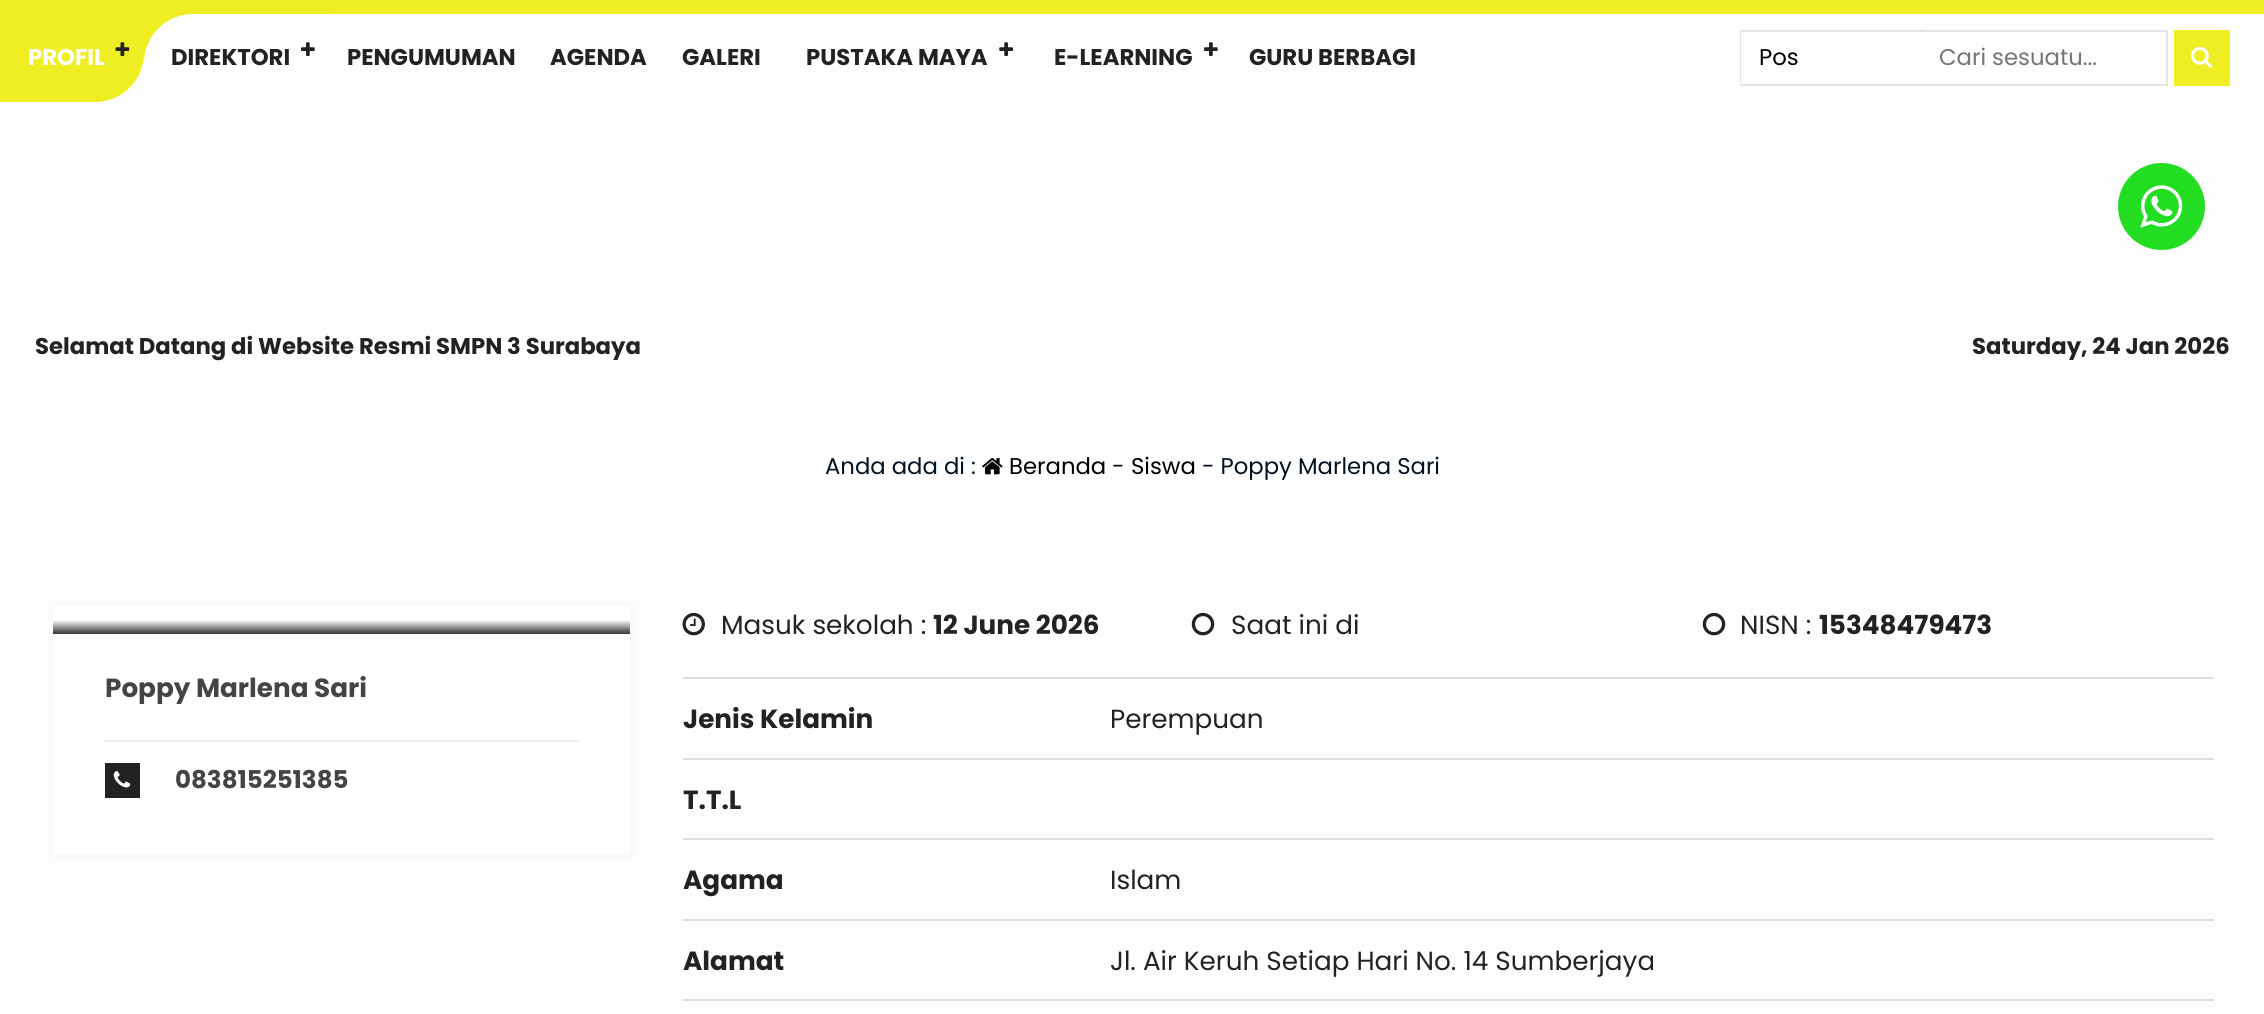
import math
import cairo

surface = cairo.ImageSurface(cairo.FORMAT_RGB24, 2264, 1014)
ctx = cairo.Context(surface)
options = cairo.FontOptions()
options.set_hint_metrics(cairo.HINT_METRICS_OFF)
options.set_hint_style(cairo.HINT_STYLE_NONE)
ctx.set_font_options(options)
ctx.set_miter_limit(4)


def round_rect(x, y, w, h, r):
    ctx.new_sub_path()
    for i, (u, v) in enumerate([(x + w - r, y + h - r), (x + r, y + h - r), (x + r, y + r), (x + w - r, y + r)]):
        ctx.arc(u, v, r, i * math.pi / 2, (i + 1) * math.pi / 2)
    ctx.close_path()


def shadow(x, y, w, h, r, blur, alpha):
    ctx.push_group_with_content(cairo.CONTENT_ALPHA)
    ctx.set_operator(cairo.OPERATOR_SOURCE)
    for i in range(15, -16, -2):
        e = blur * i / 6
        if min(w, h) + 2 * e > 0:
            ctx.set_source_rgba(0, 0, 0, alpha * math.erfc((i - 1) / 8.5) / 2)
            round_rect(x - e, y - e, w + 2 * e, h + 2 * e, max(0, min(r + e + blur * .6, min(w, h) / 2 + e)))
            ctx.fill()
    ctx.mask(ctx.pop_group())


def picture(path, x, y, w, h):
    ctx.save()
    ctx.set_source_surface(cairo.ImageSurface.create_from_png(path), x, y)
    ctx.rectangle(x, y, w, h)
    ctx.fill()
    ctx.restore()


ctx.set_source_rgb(0.992, 0.992, 0.992)
ctx.paint()
ctx.set_source_rgb(0.933, 0.933, 0.133)
ctx.rectangle(0, 0, 2264, 14)
ctx.fill()
ctx.new_path()
ctx.move_to(0, 14)
ctx.line_to(144, 14)
ctx.line_to(144, 53)
ctx.curve_to(144, 80, 122, 102, 95, 102)
ctx.line_to(0, 102)
ctx.close_path()
ctx.fill()
ctx.select_font_face("Poppins", cairo.FONT_SLANT_NORMAL, cairo.FONT_WEIGHT_BOLD)
ctx.set_font_size(22.75)
ctx.set_source_rgb(1, 1, 1)
ctx.move_to(28, 65)
ctx.show_text("PROFIL")
picture("img1.png", 115, 42, 15, 14)
ctx.set_source_rgb(0.933, 0.933, 0.133)
ctx.rectangle(144, 14, 49, 49)
ctx.fill()
ctx.set_source_rgb(1, 1, 1)
ctx.new_path()
ctx.move_to(193, 14)
ctx.line_to(329, 14)
ctx.line_to(329, 102)
ctx.line_to(144, 102)
ctx.line_to(144, 63)
ctx.curve_to(144, 36, 166, 14, 193, 14)
ctx.close_path()
ctx.fill()
ctx.set_source_rgb(0.133, 0.133, 0.133)
ctx.move_to(171, 65)
ctx.show_text("DIREKTORI")
picture("img2.png", 301, 42, 14, 14)
ctx.move_to(347, 65)
ctx.show_text("PENGUMUMAN")
ctx.move_to(550, 65)
ctx.show_text("AGENDA")
ctx.move_to(682, 65)
ctx.show_text("GALERI")
ctx.move_to(806, 65)
ctx.show_text("PUSTAKA MAYA")
picture("img3.png", 999, 42, 14, 14)
ctx.move_to(1054, 65)
ctx.show_text("E-LEARNING")
picture("img2.png", 1204, 42, 14, 14)
ctx.move_to(1249, 65)
ctx.show_text("GURU BERBAGI")
ctx.set_source_rgb(0.902, 0.902, 0.902)
ctx.new_path()
ctx.move_to(1922, 30)
ctx.line_to(2168, 30)
ctx.line_to(2166, 32)
ctx.line_to(1922, 32)
ctx.close_path()
ctx.fill()
ctx.set_source_rgba(0, 0, 0, 0.1)
ctx.new_path()
ctx.move_to(1740, 30)
ctx.line_to(1923, 30)
ctx.line_to(1923, 32)
ctx.line_to(1741, 32)
ctx.close_path()
ctx.fill()
ctx.new_path()
ctx.move_to(2168, 30)
ctx.line_to(2168, 86)
ctx.line_to(2166, 84)
ctx.line_to(2166, 32)
ctx.close_path()
ctx.fill()
ctx.new_path()
ctx.move_to(2168, 86)
ctx.line_to(1922, 86)
ctx.line_to(1922, 84)
ctx.line_to(2166, 84)
ctx.close_path()
ctx.fill()
ctx.new_path()
ctx.move_to(1923, 86)
ctx.line_to(1740, 86)
ctx.line_to(1741, 84)
ctx.line_to(1923, 84)
ctx.close_path()
ctx.fill()
ctx.new_path()
ctx.move_to(1740, 86)
ctx.line_to(1740, 30)
ctx.line_to(1741, 32)
ctx.line_to(1741, 84)
ctx.close_path()
ctx.fill()
ctx.select_font_face("Poppins")
ctx.set_source_rgb(0, 0, 0)
ctx.move_to(1759, 65)
ctx.show_text("Pos")
ctx.set_source_rgb(0.459, 0.459, 0.459)
ctx.move_to(1939, 65)
ctx.show_text("Cari sesuatu...")
ctx.set_source_rgb(0.933, 0.933, 0.133)
ctx.rectangle(2174, 30, 56, 56)
ctx.fill()
picture("img4.png", 2191, 46, 22, 22)
ctx.set_source_rgb(0.133, 0.867, 0.133)
ctx.arc(2161.5, 206.5, 43.5, 0, 2 * math.pi)
ctx.fill()
picture("img5.png", 2140, 185, 43, 43)
ctx.select_font_face("Poppins", cairo.FONT_SLANT_NORMAL, cairo.FONT_WEIGHT_BOLD)
ctx.set_source_rgb(0.133, 0.133, 0.133)
ctx.move_to(35, 354)
ctx.show_text("Selamat Datang di Website Resmi SMPN 3 Surabaya")
ctx.move_to(1972, 354)
ctx.show_text("Saturday, 24 Jan 2026")
ctx.select_font_face("Poppins")
ctx.set_source_rgb(0, 0.067, 0.133)
ctx.move_to(825, 474)
ctx.show_text("Anda ada di :")
picture("img6.png", 982, 458, 21, 17)
ctx.set_source_rgb(0, 0, 0)
ctx.move_to(1009, 474)
ctx.show_text("Beranda")
ctx.set_source_rgb(0, 0.067, 0.133)
ctx.move_to(1112, 474)
ctx.show_text("-")
ctx.set_source_rgb(0, 0, 0)
ctx.move_to(1131, 474)
ctx.show_text("Siswa")
ctx.set_source_rgb(0, 0.067, 0.133)
ctx.move_to(1202, 474)
ctx.show_text("- Poppy Marlena Sari")
ctx.set_source_rgb(0, 0, 0)
shadow(53, 606, 577, 248, 0, 4.5, 0.05)
ctx.set_source_rgb(1, 1, 1)
ctx.rectangle(53, 606, 577, 248)
ctx.fill()
gradient = cairo.LinearGradient(341, 620, 341, 634)
gradient.add_color_stop_rgba(0, 1, 1, 1, 1)
gradient.add_color_stop_rgba(1, 0.2, 0.2, 0.2, 1)
ctx.set_source(gradient)
ctx.rectangle(53, 620, 577, 14)
ctx.fill()
ctx.select_font_face("Poppins", cairo.FONT_SLANT_NORMAL, cairo.FONT_WEIGHT_BOLD)
ctx.set_font_size(26.25)
ctx.set_source_rgb(0.267, 0.267, 0.267)
ctx.move_to(105, 697)
ctx.show_text("Poppy Marlena Sari")
ctx.set_source_rgb(0.133, 0.133, 0.133)
ctx.rectangle(105, 763, 35, 35)
ctx.fill()
picture("img7.png", 113, 771, 18, 17)
ctx.set_source_rgb(0.933, 0.933, 0.933)
ctx.rectangle(105, 740, 474, 2)
ctx.fill()
ctx.set_font_size(24.5)
ctx.set_source_rgb(0.267, 0.267, 0.267)
ctx.move_to(175, 788)
ctx.show_text("083815251385")
picture("img8.png", 682, 612, 23, 24)
ctx.select_font_face("Poppins")
ctx.set_font_size(26.25)
ctx.set_source_rgb(0.133, 0.133, 0.133)
ctx.move_to(721, 634)
ctx.show_text("Masuk sekolah :")
ctx.select_font_face("Poppins", cairo.FONT_SLANT_NORMAL, cairo.FONT_WEIGHT_BOLD)
ctx.move_to(933, 634)
ctx.show_text("12 June 2026")
picture("img9.png", 1191, 612, 24, 24)
ctx.select_font_face("Poppins")
ctx.move_to(1231, 634)
ctx.show_text("Saat ini di")
picture("img9.png", 1702, 612, 24, 24)
ctx.move_to(1740, 634)
ctx.show_text("NISN :")
ctx.select_font_face("Poppins", cairo.FONT_SLANT_NORMAL, cairo.FONT_WEIGHT_BOLD)
ctx.move_to(1819, 634)
ctx.show_text("15348479473")
ctx.move_to(683, 728)
ctx.show_text("Jenis Kelamin")
ctx.set_source_rgb(0.867, 0.867, 0.867)
ctx.rectangle(683, 677, 1531, 2)
ctx.fill()
ctx.select_font_face("Poppins")
ctx.set_source_rgb(0.133, 0.133, 0.133)
ctx.move_to(1110, 728)
ctx.show_text("Perempuan")
ctx.set_source_rgb(0.867, 0.867, 0.867)
ctx.rectangle(683, 758, 1531, 2)
ctx.fill()
ctx.select_font_face("Poppins", cairo.FONT_SLANT_NORMAL, cairo.FONT_WEIGHT_BOLD)
ctx.set_source_rgb(0.133, 0.133, 0.133)
ctx.move_to(683, 809)
ctx.show_text("T.T.L")
ctx.move_to(683, 889)
ctx.show_text("Agama")
ctx.set_source_rgb(0.867, 0.867, 0.867)
ctx.rectangle(683, 838, 1531, 2)
ctx.fill()
ctx.select_font_face("Poppins")
ctx.set_source_rgb(0.133, 0.133, 0.133)
ctx.move_to(1110, 889)
ctx.show_text("Islam")
ctx.select_font_face("Poppins", cairo.FONT_SLANT_NORMAL, cairo.FONT_WEIGHT_BOLD)
ctx.move_to(683, 970)
ctx.show_text("Alamat")
ctx.set_source_rgb(0.867, 0.867, 0.867)
ctx.rectangle(683, 919, 1531, 2)
ctx.fill()
ctx.select_font_face("Poppins")
ctx.set_source_rgb(0.133, 0.133, 0.133)
ctx.move_to(1110, 970)
ctx.show_text("Jl. Air Keruh Setiap Hari No. 14 Sumberjaya")
ctx.set_source_rgb(0.867, 0.867, 0.867)
ctx.rectangle(683, 999, 1531, 2)
ctx.fill()
surface.write_to_png("page.png")
